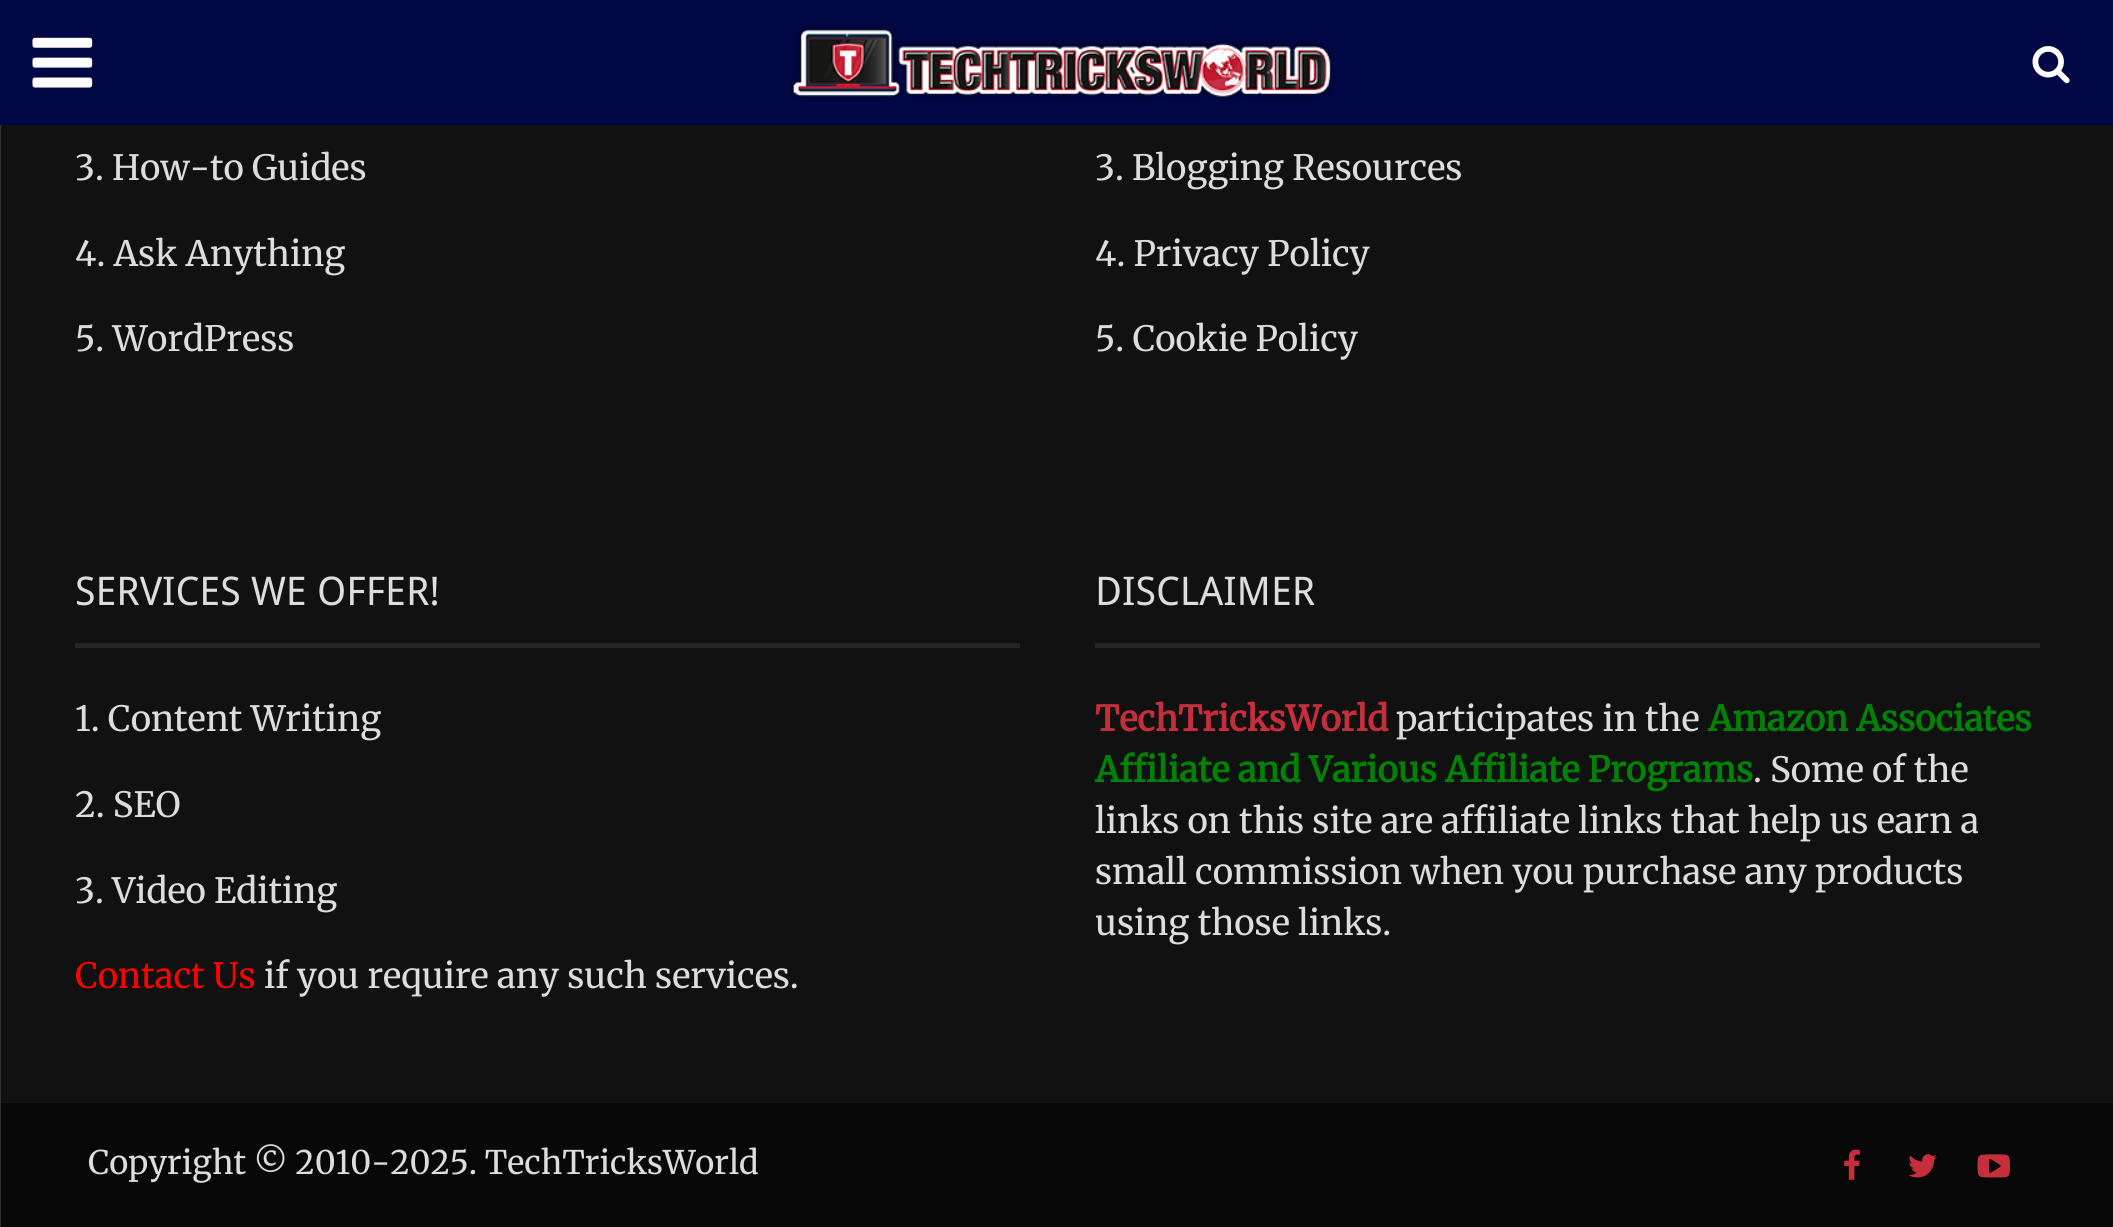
import math
import cairo

surface = cairo.ImageSurface(cairo.FORMAT_RGB24, 2113, 1227)
ctx = cairo.Context(surface)
options = cairo.FontOptions()
options.set_hint_metrics(cairo.HINT_METRICS_OFF)
options.set_hint_style(cairo.HINT_STYLE_NONE)
ctx.set_font_options(options)
ctx.set_miter_limit(4)


def picture(path, x, y, w, h):
    ctx.save()
    ctx.set_source_surface(cairo.ImageSurface.create_from_png(path), x, y)
    ctx.rectangle(x, y, w, h)
    ctx.fill()
    ctx.restore()


ctx.set_source_rgb(0.067, 0.067, 0.067)
ctx.paint()
ctx.set_source_rgb(0.208, 0.208, 0.208)
ctx.rectangle(0, 125, 1, 978)
ctx.fill()
ctx.set_source_rgb(0, 0.031, 0.267)
ctx.rectangle(0, 0, 2113, 125)
ctx.fill()
picture("img1.png", 32, 37, 61, 51)
picture("img2.png", 789, 25, 546, 76)
picture("img3.png", 2032, 46, 38, 38)
ctx.select_font_face("Merriweather Light")
ctx.set_font_size(34.8)
ctx.set_source_rgb(0.867, 0.867, 0.867)
ctx.move_to(75, 180)
ctx.show_text("3. How-to Guides")
ctx.move_to(75, 266)
ctx.show_text("4. Ask Anything")
ctx.move_to(75, 351)
ctx.show_text("5. WordPress")
ctx.move_to(1095, 180)
ctx.show_text("3. Blogging Resources")
ctx.move_to(1095, 266)
ctx.show_text("4. Privacy Policy")
ctx.move_to(1095, 351)
ctx.show_text("5. Cookie Policy")
ctx.select_font_face("Droid Sans")
ctx.set_font_size(39.5)
ctx.move_to(75, 605)
ctx.show_text("SERVICES WE OFFER!")
ctx.set_source_rgb(0.145, 0.145, 0.145)
ctx.rectangle(75, 643, 945, 5)
ctx.fill()
ctx.select_font_face("Merriweather Light")
ctx.set_font_size(34.8)
ctx.set_source_rgb(0.867, 0.867, 0.867)
ctx.move_to(75, 731)
ctx.show_text("1. Content Writing")
ctx.move_to(75, 817)
ctx.show_text("2. SEO")
ctx.move_to(75, 903)
ctx.show_text("3. Video Editing")
ctx.set_source_rgb(1, 0, 0)
ctx.move_to(75, 988)
ctx.show_text("Contact Us")
ctx.set_source_rgb(0.867, 0.867, 0.867)
ctx.move_to(264, 988)
ctx.show_text("if you require any such services.")
ctx.select_font_face("Droid Sans")
ctx.set_font_size(39.5)
ctx.move_to(1095, 605)
ctx.show_text("DISCLAIMER")
ctx.set_source_rgb(0.145, 0.145, 0.145)
ctx.rectangle(1095, 643, 945, 5)
ctx.fill()
ctx.select_font_face("Merriweather", cairo.FONT_SLANT_NORMAL, cairo.FONT_WEIGHT_BOLD)
ctx.set_font_size(34.8)
ctx.set_source_rgb(0.773, 0.18, 0.227)
ctx.move_to(1095, 731)
ctx.show_text("TechTricksWorld")
ctx.select_font_face("Merriweather Light")
ctx.set_source_rgb(0.867, 0.867, 0.867)
ctx.move_to(1396, 731)
ctx.show_text("participates in the")
ctx.select_font_face("Merriweather", cairo.FONT_SLANT_NORMAL, cairo.FONT_WEIGHT_BOLD)
ctx.set_source_rgb(0, 0.502, 0.02)
ctx.move_to(1708, 731)
ctx.show_text("Amazon Associates")
ctx.move_to(1095, 782)
ctx.show_text("Affiliate and Various Affiliate Programs")
ctx.select_font_face("Merriweather Light")
ctx.set_source_rgb(0.867, 0.867, 0.867)
ctx.move_to(1753, 782)
ctx.show_text(". Some of the")
ctx.move_to(1095, 833)
ctx.show_text("links on this site are affiliate links that help us earn a")
ctx.move_to(1095, 884)
ctx.show_text("small commission when you purchase any products")
ctx.move_to(1095, 935)
ctx.show_text("using those links.")
ctx.set_source_rgb(0.035, 0.035, 0.035)
ctx.rectangle(1, 1103, 2112, 124)
ctx.fill()
ctx.set_source_rgb(0.18, 0.18, 0.18)
ctx.rectangle(0, 1103, 1, 124)
ctx.fill()
ctx.set_font_size(32.5)
ctx.set_source_rgb(0.867, 0.867, 0.867)
ctx.move_to(88, 1174)
ctx.show_text("Copyright © 2010-2025. TechTricksWorld")
picture("img4.png", 1844, 1149, 16, 31)
picture("img5.png", 1908, 1154, 29, 24)
picture("img6.png", 1977, 1154, 33, 24)
surface.write_to_png("page.png")
